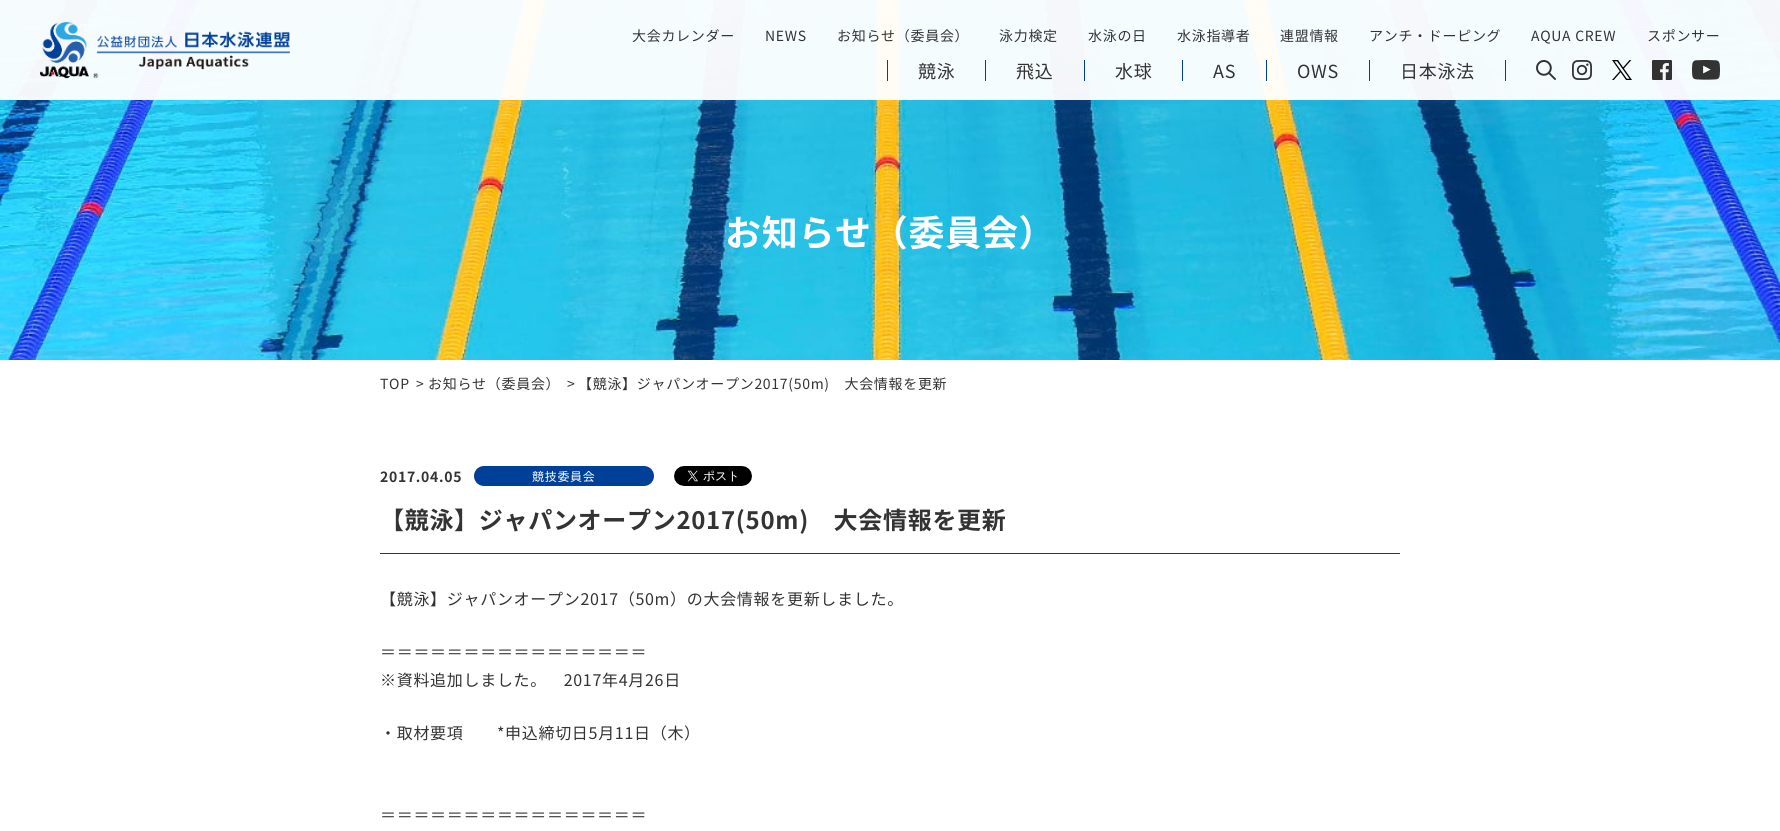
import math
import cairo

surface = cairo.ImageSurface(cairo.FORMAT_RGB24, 1780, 831)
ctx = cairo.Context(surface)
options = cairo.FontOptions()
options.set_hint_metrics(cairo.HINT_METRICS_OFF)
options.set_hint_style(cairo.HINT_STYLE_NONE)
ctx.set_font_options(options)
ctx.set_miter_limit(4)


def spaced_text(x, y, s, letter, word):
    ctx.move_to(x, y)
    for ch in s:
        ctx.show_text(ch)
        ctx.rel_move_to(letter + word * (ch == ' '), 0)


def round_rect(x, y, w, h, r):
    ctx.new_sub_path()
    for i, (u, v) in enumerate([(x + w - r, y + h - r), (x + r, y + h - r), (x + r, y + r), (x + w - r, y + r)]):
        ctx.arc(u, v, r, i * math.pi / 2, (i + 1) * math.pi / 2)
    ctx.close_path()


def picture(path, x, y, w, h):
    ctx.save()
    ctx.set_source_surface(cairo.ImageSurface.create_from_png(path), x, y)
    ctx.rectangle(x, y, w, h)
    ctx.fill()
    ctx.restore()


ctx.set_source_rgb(1, 1, 1)
ctx.paint()
picture("img7.png", 0, 0, 1780, 360)
ctx.set_source_rgba(1, 1, 1, 0.95)
ctx.rectangle(0, 0, 1780, 100)
ctx.fill()
picture("img1.png", 40, 21, 250, 58)
ctx.select_font_face("Noto Sans CJK JP")
ctx.set_font_size(14)
ctx.set_source_rgb(0.2, 0.2, 0.2)
spaced_text(632, 41, "大会カレンダー", 0.7, 0)
spaced_text(765, 41, "NEWS", 0.7, 0)
spaced_text(837, 41, "お知らせ（委員会）", 0.7, 0)
spaced_text(999, 41, "泳力検定", 0.7, 0)
spaced_text(1088, 41, "水泳の日", 0.7, 0)
spaced_text(1177, 41, "水泳指導者", 0.7, 0)
spaced_text(1280, 41, "連盟情報", 0.7, 0)
spaced_text(1369, 41, "アンチ・ドーピング", 0.7, 0)
spaced_text(1531, 41, "AQUA CREW", 0.7, 0)
spaced_text(1647, 41, "スポンサー", 0.7, 0)
ctx.set_source_rgb(0.004, 0.251, 0.6)
ctx.rectangle(985, 60, 1, 21)
ctx.fill()
ctx.rectangle(887, 60, 1, 21)
ctx.fill()
ctx.set_font_size(18)
ctx.set_source_rgb(0.2, 0.2, 0.2)
spaced_text(918, 78, "競泳", 0.7, 0)
ctx.set_source_rgb(0.004, 0.251, 0.6)
ctx.rectangle(1084, 60, 1, 21)
ctx.fill()
ctx.set_source_rgb(0.2, 0.2, 0.2)
spaced_text(1016, 78, "飛込", 0.7, 0)
ctx.set_source_rgb(0.004, 0.251, 0.6)
ctx.rectangle(1182, 60, 1, 21)
ctx.fill()
ctx.set_source_rgb(0.2, 0.2, 0.2)
spaced_text(1115, 78, "水球", 0.7, 0)
ctx.set_source_rgb(0.004, 0.251, 0.6)
ctx.rectangle(1266, 60, 1, 21)
ctx.fill()
ctx.set_source_rgb(0.2, 0.2, 0.2)
spaced_text(1213, 78, "AS", 0.7, 0)
ctx.set_source_rgb(0.004, 0.251, 0.6)
ctx.rectangle(1369, 60, 1, 21)
ctx.fill()
ctx.set_source_rgb(0.2, 0.2, 0.2)
spaced_text(1297, 78, "OWS", 0.7, 0)
ctx.set_source_rgb(0.004, 0.251, 0.6)
ctx.rectangle(1505, 60, 1, 21)
ctx.fill()
ctx.set_source_rgb(0.2, 0.2, 0.2)
spaced_text(1400, 78, "日本泳法", 0.7, 0)
picture("img2.png", 1536, 60, 20, 20)
picture("img3.png", 1572, 60, 20, 20)
picture("img4.png", 1612, 60, 20, 20)
picture("img5.png", 1652, 60, 20, 20)
picture("img6.png", 1692, 60, 28, 20)
ctx.select_font_face("Noto Sans CJK JP", cairo.FONT_SLANT_NORMAL, cairo.FONT_WEIGHT_BOLD)
ctx.set_font_size(36)
ctx.set_source_rgb(1, 1, 1)
spaced_text(725, 246, "お知らせ（委員会）", 0.7, 0)
ctx.select_font_face("Noto Sans CJK JP")
ctx.set_font_size(14)
ctx.set_source_rgb(0.2, 0.2, 0.2)
spaced_text(380, 389, "TOP", 0.7, 0)
spaced_text(416, 389, ">", 0.7, 0)
spaced_text(428, 389, "お知らせ（委員会）", 0.7, 0)
spaced_text(567, 389, ">", 0.7, 0)
spaced_text(578, 389, "【競泳】ジャパンオープン2017(50m)　大会情報を更新", 0.7, 0)
ctx.select_font_face("Noto Sans CJK JP", cairo.FONT_SLANT_NORMAL, cairo.FONT_WEIGHT_BOLD)
spaced_text(380, 482, "2017.04.05", 0.7, 0)
ctx.set_source_rgb(0.004, 0.251, 0.6)
round_rect(474, 466, 180, 20, 10)
ctx.fill()
ctx.select_font_face("Noto Sans CJK JP")
ctx.set_font_size(12)
ctx.set_source_rgb(1, 1, 1)
spaced_text(532, 481, "競技委員会", 0.7, 0)
picture("img8.png", 674, 466, 78, 20)
ctx.select_font_face("Noto Sans CJK JP", cairo.FONT_SLANT_NORMAL, cairo.FONT_WEIGHT_BOLD)
ctx.set_font_size(24)
ctx.set_source_rgb(0.2, 0.2, 0.2)
spaced_text(380, 529, "【競泳】ジャパンオープン2017(50m)　大会情報を更新", 0.7, 0)
ctx.set_source_rgb(0.004, 0.251, 0.6)
ctx.rectangle(380, 553, 1020, 1)
ctx.fill()
ctx.select_font_face("Noto Sans CJK JP")
ctx.set_font_size(16)
ctx.set_source_rgb(0.2, 0.2, 0.2)
spaced_text(380, 605, "【競泳】ジャパンオープン2017（50m）の大会情報を更新しました。", 0.7, 0)
spaced_text(380, 658, "＝＝＝＝＝＝＝＝＝＝＝＝＝＝＝＝", 0.7, 0)
spaced_text(380, 686, "※資料追加しました。　2017年4月26日", 0.7, 0)
spaced_text(380, 739, "・取材要項　　*申込締切日5月11日（木）", 0.7, 0)
spaced_text(380, 821, "＝＝＝＝＝＝＝＝＝＝＝＝＝＝＝＝", 0.7, 0)
surface.write_to_png("page.png")
